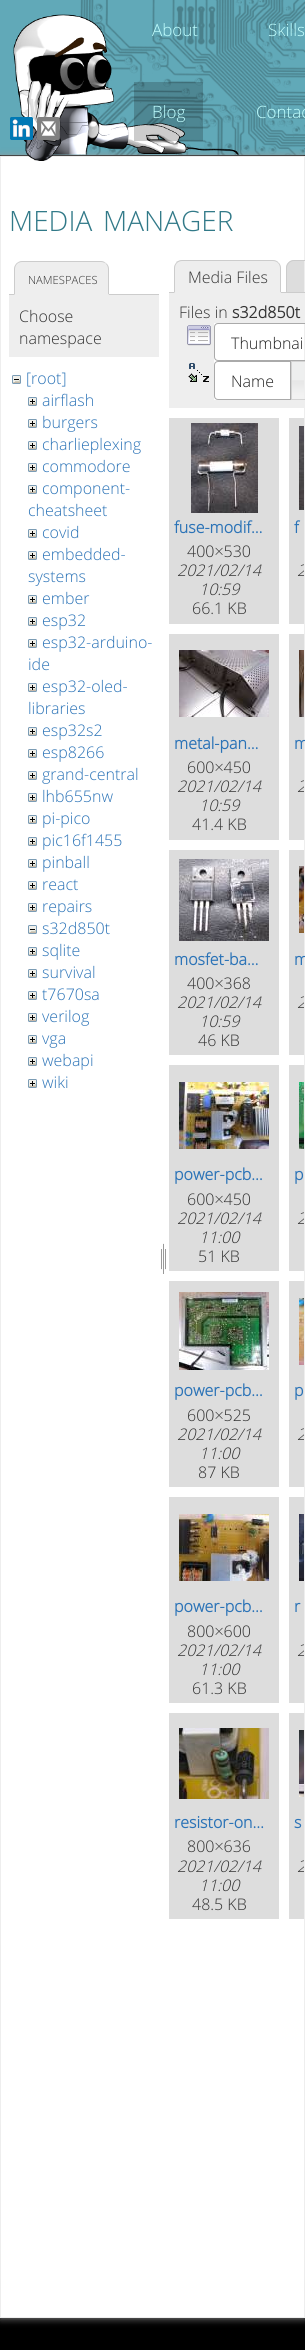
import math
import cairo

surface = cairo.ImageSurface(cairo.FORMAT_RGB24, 305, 2350)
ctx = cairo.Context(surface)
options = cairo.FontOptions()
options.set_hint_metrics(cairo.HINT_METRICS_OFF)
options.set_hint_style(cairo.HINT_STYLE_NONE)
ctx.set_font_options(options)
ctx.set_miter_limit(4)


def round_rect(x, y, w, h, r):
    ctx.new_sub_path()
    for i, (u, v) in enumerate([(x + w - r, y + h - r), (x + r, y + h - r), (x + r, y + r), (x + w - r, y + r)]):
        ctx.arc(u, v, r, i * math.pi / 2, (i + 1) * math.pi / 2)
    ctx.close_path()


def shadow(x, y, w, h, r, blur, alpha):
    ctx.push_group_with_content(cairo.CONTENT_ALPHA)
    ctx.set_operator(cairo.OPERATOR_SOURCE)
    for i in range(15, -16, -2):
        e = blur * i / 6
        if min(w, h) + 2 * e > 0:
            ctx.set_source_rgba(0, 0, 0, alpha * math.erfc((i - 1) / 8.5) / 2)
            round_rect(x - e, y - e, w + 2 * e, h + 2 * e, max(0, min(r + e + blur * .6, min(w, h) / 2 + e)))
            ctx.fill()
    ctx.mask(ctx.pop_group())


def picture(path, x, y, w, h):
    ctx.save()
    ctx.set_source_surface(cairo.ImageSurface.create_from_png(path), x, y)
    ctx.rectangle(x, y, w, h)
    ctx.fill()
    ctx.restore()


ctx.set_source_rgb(0, 0, 0)
ctx.paint()
ctx.set_source_rgb(0.38, 0.663, 0.722)
ctx.rectangle(0, 0, 305, 155)
ctx.fill()
picture("img1.png", 79, 0, 226, 155)
ctx.set_source_rgb(0.6, 0.6, 0.6)
shadow(0, 156, 305, 2162, 0, 4, 1)
ctx.set_source_rgb(1, 1, 1)
ctx.rectangle(0.5, 156.5, 304, 2161)
ctx.fill_preserve()
ctx.set_source_rgb(0.933, 0.933, 0.933)
ctx.set_line_width(1)
ctx.stroke()
picture("img2.png", 13, 14, 226, 147)
ctx.select_font_face("Open Sans Light")
ctx.set_font_size(17)
ctx.set_source_rgb(0.757, 1, 1)
ctx.move_to(152, 36)
ctx.show_text("About")
ctx.move_to(268, 36)
ctx.show_text("Skills")
ctx.set_source_rgba(0, 0, 0, 0.2)
ctx.rectangle(134, 82, 69, 59)
ctx.fill()
ctx.set_source_rgb(0.757, 1, 1)
ctx.move_to(152, 118)
ctx.show_text("Blog")
ctx.move_to(256, 118)
ctx.show_text("Contac")
picture("img3.png", 10, 117, 23, 23)
picture("img4.png", 37, 117, 23, 23)
ctx.set_font_size(28)
ctx.set_source_rgb(0.192, 0.475, 0.533)
ctx.move_to(9, 231)
ctx.show_text("MEDIA")
ctx.move_to(103, 231)
ctx.show_text("MANAGER")
ctx.set_source_rgb(0.8, 0.8, 0.8)
ctx.rectangle(9, 294, 150, 1)
ctx.fill()
ctx.set_source_rgb(0.933, 0.933, 0.933)
ctx.new_path()
ctx.move_to(22, 261)
ctx.line_to(101, 261)
ctx.curve_to(105.5, 261, 109, 264.5, 109, 269)
ctx.line_to(109, 295)
ctx.line_to(14, 295)
ctx.line_to(14, 269)
ctx.curve_to(14, 264.5, 17.5, 261, 22, 261)
ctx.close_path()
ctx.fill()
ctx.set_source_rgb(0.8, 0.8, 0.8)
ctx.new_path()
ctx.move_to(22, 261)
ctx.curve_to(20, 261, 18, 262, 16, 264)
ctx.line_to(17, 264)
ctx.curve_to(18, 263, 20, 262, 22, 262)
ctx.line_to(101, 262)
ctx.curve_to(103, 262, 105, 263, 106, 264)
ctx.curve_to(105, 262, 103, 261, 101, 261)
ctx.close_path()
ctx.fill()
ctx.new_path()
ctx.move_to(109, 295)
ctx.line_to(109, 269)
ctx.curve_to(109, 267, 108, 265, 106.5, 263.5)
ctx.line_to(106, 264)
ctx.curve_to(107, 265, 108, 267, 108, 269)
ctx.line_to(108, 294)
ctx.close_path()
ctx.fill()
ctx.set_source_rgb(0.933, 0.933, 0.933)
ctx.new_path()
ctx.move_to(109, 295)
ctx.line_to(108, 294)
ctx.line_to(15, 294)
ctx.line_to(14, 295)
ctx.close_path()
ctx.fill()
ctx.set_source_rgb(0.8, 0.8, 0.8)
ctx.new_path()
ctx.move_to(14, 295)
ctx.line_to(15, 294)
ctx.line_to(15, 269)
ctx.curve_to(15, 267, 16, 265, 17, 264)
ctx.line_to(16.5, 263.5)
ctx.curve_to(15, 265, 14, 267, 14, 269)
ctx.close_path()
ctx.fill()
ctx.set_font_size(11.25)
ctx.set_source_rgb(0.2, 0.2, 0.2)
ctx.move_to(28, 284)
ctx.show_text("NAMESPACES")
ctx.set_source_rgb(0.933, 0.933, 0.933)
ctx.rectangle(9, 295, 150, 62)
ctx.fill()
ctx.set_font_size(16)
ctx.set_source_rgb(0.2, 0.2, 0.2)
ctx.move_to(19, 322)
ctx.show_text("Choose")
ctx.move_to(19, 344)
ctx.show_text("namespace")
picture("img5.png", 12, 375, 9, 9)
ctx.set_source_rgb(0.169, 0.451, 0.718)
ctx.move_to(26, 384)
ctx.show_text("[root]")
picture("img6.png", 28, 397, 9, 9)
ctx.move_to(42, 406)
ctx.show_text("airflash")
picture("img6.png", 28, 419, 9, 9)
ctx.move_to(42, 428)
ctx.show_text("burgers")
picture("img6.png", 28, 441, 9, 9)
ctx.move_to(42, 450)
ctx.show_text("charlieplexing")
picture("img6.png", 28, 463, 9, 9)
ctx.move_to(42, 472)
ctx.show_text("commodore")
picture("img6.png", 28, 485, 9, 9)
ctx.move_to(42, 494)
ctx.show_text("component-")
ctx.move_to(28, 516)
ctx.show_text("cheatsheet")
picture("img6.png", 28, 529, 9, 9)
ctx.move_to(42, 538)
ctx.show_text("covid")
picture("img6.png", 28, 551, 9, 9)
ctx.move_to(42, 560)
ctx.show_text("embedded-")
ctx.move_to(28, 582)
ctx.show_text("systems")
picture("img6.png", 28, 595, 9, 9)
ctx.move_to(42, 604)
ctx.show_text("ember")
picture("img6.png", 28, 617, 9, 9)
ctx.move_to(42, 626)
ctx.show_text("esp32")
picture("img6.png", 28, 639, 9, 9)
ctx.move_to(42, 648)
ctx.show_text("esp32-arduino-")
ctx.move_to(28, 670)
ctx.show_text("ide")
picture("img6.png", 28, 683, 9, 9)
ctx.move_to(42, 692)
ctx.show_text("esp32-oled-")
ctx.move_to(28, 714)
ctx.show_text("libraries")
picture("img6.png", 28, 727, 9, 9)
ctx.move_to(42, 736)
ctx.show_text("esp32s2")
picture("img6.png", 28, 749, 9, 9)
ctx.move_to(42, 758)
ctx.show_text("esp8266")
picture("img6.png", 28, 771, 9, 9)
ctx.move_to(42, 780)
ctx.show_text("grand-central")
picture("img6.png", 28, 793, 9, 9)
ctx.move_to(42, 802)
ctx.show_text("lhb655nw")
picture("img6.png", 28, 815, 9, 9)
ctx.move_to(42, 824)
ctx.show_text("pi-pico")
picture("img6.png", 28, 837, 9, 9)
ctx.move_to(42, 846)
ctx.show_text("pic16f1455")
picture("img6.png", 28, 859, 9, 9)
ctx.move_to(42, 868)
ctx.show_text("pinball")
picture("img6.png", 28, 881, 9, 9)
ctx.move_to(42, 890)
ctx.show_text("react")
picture("img6.png", 28, 903, 9, 9)
ctx.move_to(42, 912)
ctx.show_text("repairs")
picture("img5.png", 28, 925, 9, 9)
ctx.move_to(42, 934)
ctx.show_text("s32d850t")
picture("img6.png", 28, 947, 9, 9)
ctx.move_to(42, 956)
ctx.show_text("sqlite")
picture("img6.png", 28, 969, 9, 9)
ctx.move_to(42, 978)
ctx.show_text("survival")
picture("img6.png", 28, 991, 9, 9)
ctx.move_to(42, 1000)
ctx.show_text("t7670sa")
picture("img6.png", 28, 1013, 9, 9)
ctx.move_to(42, 1022)
ctx.show_text("verilog")
picture("img6.png", 28, 1035, 9, 9)
ctx.move_to(42, 1044)
ctx.show_text("vga")
picture("img6.png", 28, 1057, 9, 9)
ctx.move_to(42, 1066)
ctx.show_text("webapi")
picture("img6.png", 28, 1079, 9, 9)
ctx.move_to(42, 1088)
ctx.show_text("wiki")
picture("img7.png", 161, 1243, 5, 31)
ctx.set_source_rgb(0.8, 0.8, 0.8)
ctx.rectangle(169, 292, 117, 1)
ctx.fill()
ctx.set_source_rgb(0.933, 0.933, 0.933)
ctx.new_path()
ctx.move_to(182, 260)
ctx.line_to(273, 260)
ctx.curve_to(277.5, 260, 281, 263.5, 281, 268)
ctx.line_to(281, 293)
ctx.line_to(174, 293)
ctx.line_to(174, 268)
ctx.curve_to(174, 263.5, 177.5, 260, 182, 260)
ctx.close_path()
ctx.fill()
ctx.set_source_rgb(0.8, 0.8, 0.8)
ctx.new_path()
ctx.move_to(182, 260)
ctx.curve_to(180, 260, 178, 261, 176, 262)
ctx.line_to(177, 263)
ctx.curve_to(178, 262, 180, 261, 182, 261)
ctx.line_to(273, 261)
ctx.curve_to(275, 261, 277, 262, 278, 263)
ctx.line_to(278, 262)
ctx.curve_to(277, 261, 275, 260, 273, 260)
ctx.close_path()
ctx.fill()
ctx.new_path()
ctx.move_to(281, 293)
ctx.line_to(281, 268)
ctx.curve_to(281, 266, 280, 264, 278.5, 262.5)
ctx.line_to(278, 263)
ctx.curve_to(279, 264, 280, 266, 280, 268)
ctx.line_to(280, 292)
ctx.close_path()
ctx.fill()
ctx.set_source_rgb(0.933, 0.933, 0.933)
ctx.new_path()
ctx.move_to(281, 293)
ctx.line_to(280, 292)
ctx.line_to(175, 292)
ctx.line_to(174, 293)
ctx.close_path()
ctx.fill()
ctx.set_source_rgb(0.8, 0.8, 0.8)
ctx.new_path()
ctx.move_to(174, 293)
ctx.line_to(175, 292)
ctx.line_to(175, 268)
ctx.curve_to(175, 266, 176, 264, 177, 263)
ctx.line_to(176.5, 262.5)
ctx.curve_to(175, 264, 174, 266, 174, 268)
ctx.close_path()
ctx.fill()
ctx.set_source_rgb(0.2, 0.2, 0.2)
ctx.move_to(188, 283)
ctx.show_text("Media Files")
ctx.set_source_rgb(0.867, 0.867, 0.867)
ctx.new_path()
ctx.move_to(294, 260)
ctx.line_to(304, 260)
ctx.line_to(304, 293)
ctx.line_to(286, 293)
ctx.line_to(286, 268)
ctx.curve_to(286, 263.5, 289.5, 260, 294, 260)
ctx.close_path()
ctx.fill()
ctx.new_path()
ctx.move_to(294, 260.5)
ctx.line_to(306, 260.5)
ctx.curve_to(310, 260.5, 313.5, 264, 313.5, 268)
ctx.line_to(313.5, 292.5)
ctx.line_to(286.5, 292.5)
ctx.line_to(286.5, 268)
ctx.curve_to(286.5, 264, 290, 260.5, 294, 260.5)
ctx.close_path()
ctx.set_source_rgb(0.8, 0.8, 0.8)
ctx.stroke()
ctx.set_source_rgb(0.933, 0.933, 0.933)
ctx.rectangle(169, 293, 135, 115)
ctx.fill()
ctx.set_source_rgb(0.2, 0.2, 0.2)
ctx.move_to(179, 318)
ctx.show_text("Files in")
ctx.select_font_face("Open Sans", cairo.FONT_SLANT_NORMAL, cairo.FONT_WEIGHT_BOLD)
ctx.move_to(232, 318)
ctx.show_text("s32d850t")
picture("img8.png", 187, 325, 24, 21)
ctx.set_source_rgb(1, 1, 1)
ctx.rectangle(214, 323, 90, 38)
ctx.fill()
ctx.new_path()
ctx.move_to(218, 323.5)
ctx.line_to(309.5, 323.5)
ctx.line_to(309.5, 360.5)
ctx.line_to(218, 360.5)
ctx.curve_to(216, 360.5, 214.5, 359, 214.5, 357)
ctx.line_to(214.5, 327)
ctx.curve_to(214.5, 325, 216, 323.5, 218, 323.5)
ctx.close_path()
ctx.set_source_rgb(0.667, 0.667, 0.667)
ctx.stroke()
ctx.select_font_face("Open Sans Light")
ctx.set_source_rgb(0.129, 0.129, 0.129)
ctx.move_to(231, 349)
ctx.show_text("Thumbnai")
picture("img9.png", 188, 363, 21, 19)
ctx.set_source_rgb(1, 1, 1)
ctx.rectangle(214, 361, 76, 39)
ctx.fill()
ctx.new_path()
ctx.move_to(218, 361.5)
ctx.line_to(290.5, 361.5)
ctx.line_to(290.5, 399.5)
ctx.line_to(218, 399.5)
ctx.curve_to(216, 399.5, 214.5, 398, 214.5, 396)
ctx.line_to(214.5, 365)
ctx.curve_to(214.5, 363, 216, 361.5, 218, 361.5)
ctx.close_path()
ctx.set_source_rgb(0.667, 0.667, 0.667)
ctx.stroke()
ctx.set_source_rgb(0.129, 0.129, 0.129)
ctx.move_to(231, 387)
ctx.show_text("Name")
picture("img10.png", 292, 362, 12, 37)
ctx.new_path()
ctx.move_to(291.5, 361.5)
ctx.line_to(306, 361.5)
ctx.curve_to(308, 361.5, 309.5, 363, 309.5, 365)
ctx.line_to(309.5, 396)
ctx.curve_to(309.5, 398, 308, 399.5, 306, 399.5)
ctx.line_to(291.5, 399.5)
ctx.close_path()
ctx.set_source_rgb(0.827, 0.827, 0.827)
ctx.stroke()
ctx.set_source_rgb(0.867, 0.867, 0.867)
ctx.rectangle(169, 418, 110, 206)
ctx.fill()
picture("img11.png", 191, 423, 67, 90)
ctx.select_font_face("Open Sans", cairo.FONT_SLANT_NORMAL, cairo.FONT_WEIGHT_BOLD)
ctx.set_source_rgb(0.169, 0.451, 0.718)
ctx.move_to(174, 533)
ctx.show_text("fuse-modif…")
ctx.select_font_face("Open Sans Light")
ctx.set_source_rgb(0.2, 0.2, 0.2)
ctx.move_to(187, 557)
ctx.show_text("400×530")
ctx.select_font_face("Open Sans Light", cairo.FONT_SLANT_ITALIC)
ctx.move_to(177, 576)
ctx.show_text("2021/02/14")
ctx.move_to(199, 595)
ctx.show_text("10:59")
ctx.select_font_face("Open Sans Light")
ctx.move_to(192, 614)
ctx.show_text("66.1 KB")
ctx.set_source_rgb(0.867, 0.867, 0.867)
ctx.rectangle(289, 418, 15, 206)
ctx.fill()
picture("img12.png", 299, 426, 5, 84)
ctx.select_font_face("Open Sans", cairo.FONT_SLANT_NORMAL, cairo.FONT_WEIGHT_BOLD)
ctx.set_source_rgb(0.169, 0.451, 0.718)
ctx.move_to(294, 533)
ctx.show_text("f")
ctx.save()
ctx.rectangle(294, 561, 10, 38)
ctx.clip()
ctx.select_font_face("Open Sans Light", cairo.FONT_SLANT_ITALIC)
ctx.set_source_rgb(0.2, 0.2, 0.2)
ctx.move_to(297, 576)
ctx.show_text("2")
ctx.restore()
ctx.set_source_rgb(0.867, 0.867, 0.867)
ctx.rectangle(169, 634, 110, 206)
ctx.fill()
picture("img13.png", 179, 650, 90, 67)
ctx.set_source_rgb(0.169, 0.451, 0.718)
ctx.move_to(174, 749)
ctx.show_text("metal-pan…")
ctx.select_font_face("Open Sans Light")
ctx.set_source_rgb(0.2, 0.2, 0.2)
ctx.move_to(187, 773)
ctx.show_text("600×450")
ctx.select_font_face("Open Sans Light", cairo.FONT_SLANT_ITALIC)
ctx.move_to(177, 792)
ctx.show_text("2021/02/14")
ctx.move_to(199, 811)
ctx.show_text("10:59")
ctx.select_font_face("Open Sans Light")
ctx.move_to(192, 830)
ctx.show_text("41.4 KB")
ctx.set_source_rgb(0.867, 0.867, 0.867)
ctx.rectangle(289, 634, 15, 206)
ctx.fill()
picture("img14.png", 299, 650, 5, 67)
ctx.select_font_face("Open Sans", cairo.FONT_SLANT_NORMAL, cairo.FONT_WEIGHT_BOLD)
ctx.set_source_rgb(0.169, 0.451, 0.718)
ctx.move_to(294, 749)
ctx.show_text("m")
ctx.save()
ctx.rectangle(294, 777, 10, 38)
ctx.clip()
ctx.select_font_face("Open Sans Light", cairo.FONT_SLANT_ITALIC)
ctx.set_source_rgb(0.2, 0.2, 0.2)
ctx.move_to(297, 792)
ctx.show_text("2")
ctx.restore()
ctx.set_source_rgb(0.867, 0.867, 0.867)
ctx.rectangle(169, 850, 110, 205)
ctx.fill()
picture("img15.png", 179, 859, 90, 82)
ctx.set_source_rgb(0.169, 0.451, 0.718)
ctx.move_to(174, 965)
ctx.show_text("mosfet-ba…")
ctx.select_font_face("Open Sans Light")
ctx.set_source_rgb(0.2, 0.2, 0.2)
ctx.move_to(187, 989)
ctx.show_text("400×368")
ctx.select_font_face("Open Sans Light", cairo.FONT_SLANT_ITALIC)
ctx.move_to(177, 1008)
ctx.show_text("2021/02/14")
ctx.move_to(199, 1027)
ctx.show_text("10:59")
ctx.select_font_face("Open Sans Light")
ctx.move_to(198, 1046)
ctx.show_text("46 KB")
ctx.set_source_rgb(0.867, 0.867, 0.867)
ctx.rectangle(289, 850, 15, 205)
ctx.fill()
picture("img16.png", 299, 866, 5, 67)
ctx.select_font_face("Open Sans", cairo.FONT_SLANT_NORMAL, cairo.FONT_WEIGHT_BOLD)
ctx.set_source_rgb(0.169, 0.451, 0.718)
ctx.move_to(294, 965)
ctx.show_text("m")
ctx.save()
ctx.rectangle(294, 993, 10, 38)
ctx.clip()
ctx.select_font_face("Open Sans Light", cairo.FONT_SLANT_ITALIC)
ctx.set_source_rgb(0.2, 0.2, 0.2)
ctx.move_to(297, 1008)
ctx.show_text("2")
ctx.restore()
ctx.set_source_rgb(0.867, 0.867, 0.867)
ctx.rectangle(169, 1065, 110, 206)
ctx.fill()
picture("img17.png", 179, 1082, 90, 67)
ctx.set_source_rgb(0.169, 0.451, 0.718)
ctx.move_to(174, 1180)
ctx.show_text("power-pcb…")
ctx.select_font_face("Open Sans Light")
ctx.set_source_rgb(0.2, 0.2, 0.2)
ctx.move_to(187, 1205)
ctx.show_text("600×450")
ctx.select_font_face("Open Sans Light", cairo.FONT_SLANT_ITALIC)
ctx.move_to(177, 1224)
ctx.show_text("2021/02/14")
ctx.move_to(199, 1243)
ctx.show_text("11:00")
ctx.select_font_face("Open Sans Light")
ctx.move_to(198, 1262)
ctx.show_text("51 KB")
ctx.set_source_rgb(0.867, 0.867, 0.867)
ctx.rectangle(289, 1065, 15, 206)
ctx.fill()
picture("img18.png", 299, 1082, 5, 67)
ctx.select_font_face("Open Sans", cairo.FONT_SLANT_NORMAL, cairo.FONT_WEIGHT_BOLD)
ctx.set_source_rgb(0.169, 0.451, 0.718)
ctx.move_to(294, 1180)
ctx.show_text("p")
ctx.save()
ctx.rectangle(294, 1209, 10, 38)
ctx.clip()
ctx.select_font_face("Open Sans Light", cairo.FONT_SLANT_ITALIC)
ctx.set_source_rgb(0.2, 0.2, 0.2)
ctx.move_to(297, 1224)
ctx.show_text("2")
ctx.restore()
ctx.set_source_rgb(0.867, 0.867, 0.867)
ctx.rectangle(169, 1281, 110, 206)
ctx.fill()
picture("img19.png", 179, 1292, 90, 78)
ctx.set_source_rgb(0.169, 0.451, 0.718)
ctx.move_to(174, 1396)
ctx.show_text("power-pcb…")
ctx.select_font_face("Open Sans Light")
ctx.set_source_rgb(0.2, 0.2, 0.2)
ctx.move_to(187, 1421)
ctx.show_text("600×525")
ctx.select_font_face("Open Sans Light", cairo.FONT_SLANT_ITALIC)
ctx.move_to(177, 1440)
ctx.show_text("2021/02/14")
ctx.move_to(199, 1459)
ctx.show_text("11:00")
ctx.select_font_face("Open Sans Light")
ctx.move_to(198, 1478)
ctx.show_text("87 KB")
ctx.set_source_rgb(0.867, 0.867, 0.867)
ctx.rectangle(289, 1281, 15, 206)
ctx.fill()
picture("img20.png", 299, 1298, 5, 67)
ctx.select_font_face("Open Sans", cairo.FONT_SLANT_NORMAL, cairo.FONT_WEIGHT_BOLD)
ctx.set_source_rgb(0.169, 0.451, 0.718)
ctx.move_to(294, 1396)
ctx.show_text("p")
ctx.save()
ctx.rectangle(294, 1425, 10, 38)
ctx.clip()
ctx.select_font_face("Open Sans Light", cairo.FONT_SLANT_ITALIC)
ctx.set_source_rgb(0.2, 0.2, 0.2)
ctx.move_to(297, 1440)
ctx.show_text("2")
ctx.restore()
ctx.set_source_rgb(0.867, 0.867, 0.867)
ctx.rectangle(169, 1497, 110, 206)
ctx.fill()
picture("img21.png", 179, 1514, 90, 67)
ctx.set_source_rgb(0.169, 0.451, 0.718)
ctx.move_to(174, 1612)
ctx.show_text("power-pcb…")
ctx.select_font_face("Open Sans Light")
ctx.set_source_rgb(0.2, 0.2, 0.2)
ctx.move_to(187, 1637)
ctx.show_text("800×600")
ctx.select_font_face("Open Sans Light", cairo.FONT_SLANT_ITALIC)
ctx.move_to(177, 1656)
ctx.show_text("2021/02/14")
ctx.move_to(199, 1675)
ctx.show_text("11:00")
ctx.select_font_face("Open Sans Light")
ctx.move_to(192, 1694)
ctx.show_text("61.3 KB")
ctx.set_source_rgb(0.867, 0.867, 0.867)
ctx.rectangle(289, 1497, 15, 206)
ctx.fill()
picture("img22.png", 299, 1514, 5, 67)
ctx.select_font_face("Open Sans", cairo.FONT_SLANT_NORMAL, cairo.FONT_WEIGHT_BOLD)
ctx.set_source_rgb(0.169, 0.451, 0.718)
ctx.move_to(294, 1612)
ctx.show_text("r")
ctx.save()
ctx.rectangle(294, 1641, 10, 38)
ctx.clip()
ctx.select_font_face("Open Sans Light", cairo.FONT_SLANT_ITALIC)
ctx.set_source_rgb(0.2, 0.2, 0.2)
ctx.move_to(297, 1656)
ctx.show_text("2")
ctx.restore()
ctx.set_source_rgb(0.867, 0.867, 0.867)
ctx.rectangle(169, 1713, 110, 206)
ctx.fill()
picture("img23.png", 179, 1728, 90, 71)
ctx.set_source_rgb(0.169, 0.451, 0.718)
ctx.move_to(174, 1828)
ctx.show_text("resistor-on…")
ctx.select_font_face("Open Sans Light")
ctx.set_source_rgb(0.2, 0.2, 0.2)
ctx.move_to(187, 1852)
ctx.show_text("800×636")
ctx.select_font_face("Open Sans Light", cairo.FONT_SLANT_ITALIC)
ctx.move_to(177, 1872)
ctx.show_text("2021/02/14")
ctx.move_to(199, 1891)
ctx.show_text("11:00")
ctx.select_font_face("Open Sans Light")
ctx.move_to(192, 1910)
ctx.show_text("48.5 KB")
ctx.set_source_rgb(0.867, 0.867, 0.867)
ctx.rectangle(289, 1713, 15, 206)
ctx.fill()
picture("img24.png", 299, 1730, 5, 67)
ctx.select_font_face("Open Sans", cairo.FONT_SLANT_NORMAL, cairo.FONT_WEIGHT_BOLD)
ctx.set_source_rgb(0.169, 0.451, 0.718)
ctx.move_to(294, 1828)
ctx.show_text("s")
ctx.save()
ctx.rectangle(294, 1857, 10, 38)
ctx.clip()
ctx.select_font_face("Open Sans Light", cairo.FONT_SLANT_ITALIC)
ctx.set_source_rgb(0.2, 0.2, 0.2)
ctx.move_to(297, 1872)
ctx.show_text("2")
ctx.restore()
surface.write_to_png("page.png")
